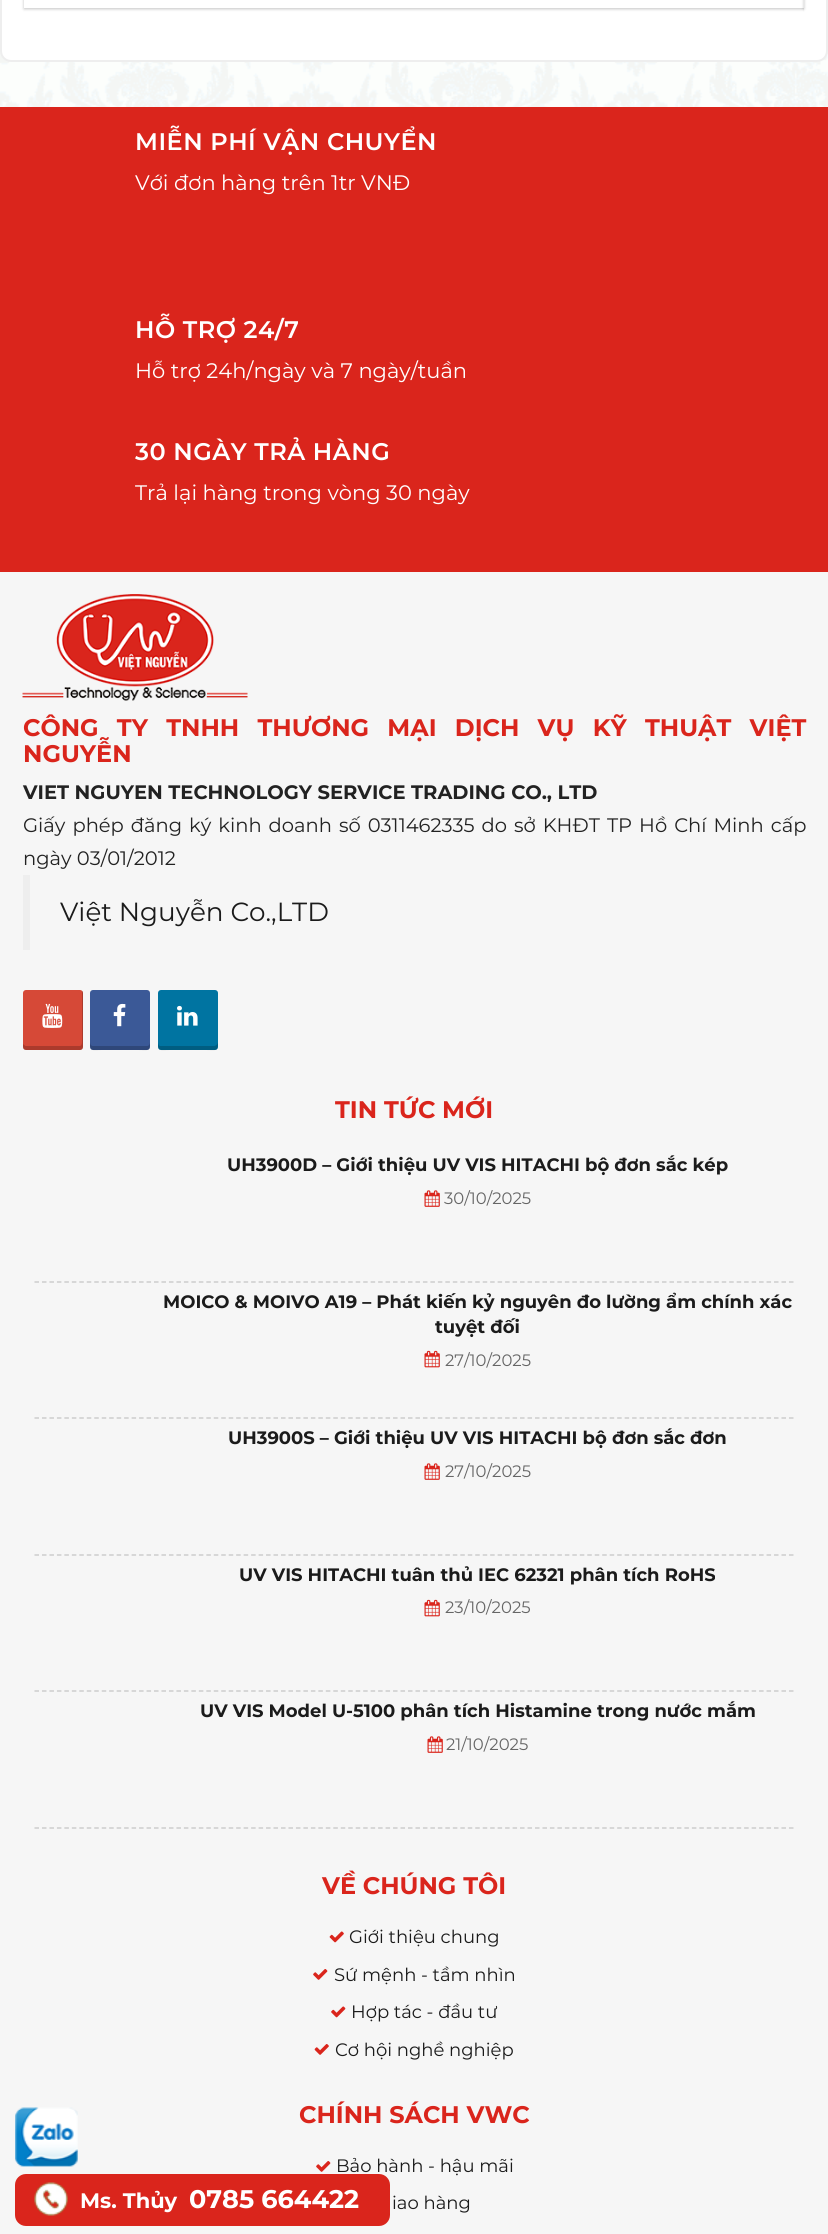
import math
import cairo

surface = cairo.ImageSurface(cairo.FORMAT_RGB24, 828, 2234)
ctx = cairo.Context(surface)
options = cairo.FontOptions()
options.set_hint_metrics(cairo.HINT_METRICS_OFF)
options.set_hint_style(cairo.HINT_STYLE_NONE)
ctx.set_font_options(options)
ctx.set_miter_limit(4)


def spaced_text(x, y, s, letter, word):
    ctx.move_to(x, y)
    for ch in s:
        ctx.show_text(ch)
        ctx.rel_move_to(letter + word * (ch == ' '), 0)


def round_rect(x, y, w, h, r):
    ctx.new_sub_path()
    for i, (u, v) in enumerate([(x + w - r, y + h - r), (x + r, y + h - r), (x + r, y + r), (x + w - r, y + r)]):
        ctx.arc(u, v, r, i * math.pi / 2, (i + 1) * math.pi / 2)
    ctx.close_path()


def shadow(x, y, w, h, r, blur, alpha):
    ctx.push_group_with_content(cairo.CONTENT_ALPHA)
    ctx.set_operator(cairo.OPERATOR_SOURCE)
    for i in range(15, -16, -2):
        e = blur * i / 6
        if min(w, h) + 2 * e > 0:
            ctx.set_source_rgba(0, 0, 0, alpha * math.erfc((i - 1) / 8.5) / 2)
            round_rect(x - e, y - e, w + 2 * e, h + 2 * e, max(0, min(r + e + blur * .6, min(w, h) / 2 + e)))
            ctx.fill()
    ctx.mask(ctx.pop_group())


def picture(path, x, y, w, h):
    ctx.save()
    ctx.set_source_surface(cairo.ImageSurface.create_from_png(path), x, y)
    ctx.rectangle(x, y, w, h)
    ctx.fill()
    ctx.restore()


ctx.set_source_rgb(1, 1, 1)
ctx.paint()
picture("img1.png", 0, 51, 828, 56)
ctx.set_source_rgb(1, 1, 1)
round_rect(1, -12, 826, 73, 10)
ctx.fill_preserve()
ctx.set_source_rgb(0.933, 0.933, 0.933)
ctx.stroke()
ctx.set_source_rgb(0, 0, 0)
shadow(24, -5, 780, 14, 0, 1.5, 0.24)
ctx.set_source_rgb(1, 1, 1)
ctx.rectangle(24, 0, 780, 8)
ctx.fill()
ctx.save()
ctx.rectangle(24, 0, 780, 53)
ctx.clip()
ctx.set_source_rgb(0, 0, 0)
shadow(804, -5, 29, 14, 0, 1.5, 0.24)
ctx.restore()
ctx.set_source_rgb(0.855, 0.145, 0.11)
ctx.rectangle(0, 107, 828, 465)
ctx.fill()
ctx.select_font_face("Montserrat SemiBold")
ctx.set_font_size(24)
ctx.set_source_rgb(1, 1, 1)
spaced_text(135, 150, "MIỄN PHÍ VẬN CHUYỂN", 0.5, 0)
ctx.select_font_face("Montserrat")
ctx.set_font_size(21)
ctx.move_to(135, 190)
ctx.show_text("Với đơn hàng trên 1tr VNĐ")
ctx.select_font_face("Montserrat SemiBold")
ctx.set_font_size(24)
spaced_text(135, 338, "HỖ TRỢ 24/7", 0.5, 0)
ctx.select_font_face("Montserrat")
ctx.set_font_size(21)
ctx.move_to(135, 378)
ctx.show_text("Hỗ trợ 24h/ngày và 7 ngày/tuần")
ctx.select_font_face("Montserrat SemiBold")
ctx.set_font_size(24)
spaced_text(135, 460, "30 NGÀY TRẢ HÀNG", 0.5, 0)
ctx.select_font_face("Montserrat")
ctx.set_font_size(21)
ctx.move_to(135, 500)
ctx.show_text("Trả lại hàng trong vòng 30 ngày")
ctx.set_source_rgb(0.961, 0.961, 0.961)
ctx.rectangle(0, 572, 828, 1662)
ctx.fill()
picture("img2.png", 22, 594, 226, 107)
ctx.select_font_face("Montserrat", cairo.FONT_SLANT_NORMAL, cairo.FONT_WEIGHT_BOLD)
ctx.set_font_size(24)
ctx.set_source_rgb(0.855, 0.145, 0.11)
spaced_text(23, 736, "CÔNG TY TNHH THƯƠNG MẠI DỊCH VỤ KỸ THUẬT VIỆT", 0, 11.5)
ctx.move_to(23, 762)
ctx.show_text("NGUYỄN")
ctx.set_font_size(19.5)
ctx.set_source_rgb(0.133, 0.133, 0.133)
ctx.move_to(23, 799)
ctx.show_text("VIET NGUYEN TECHNOLOGY SERVICE TRADING CO., LTD")
ctx.select_font_face("Montserrat")
spaced_text(23, 832, "Giấy phép đăng ký kinh doanh số 0311462335 do sở KHĐT TP Hồ Chí Minh cấp", 0, 1.9)
ctx.move_to(23, 865)
ctx.show_text("ngày 03/01/2012")
ctx.set_source_rgb(0.933, 0.933, 0.933)
ctx.rectangle(23, 875, 7, 75)
ctx.fill()
ctx.set_font_size(26.25)
ctx.set_source_rgb(0.106, 0.106, 0.106)
ctx.move_to(60, 921)
ctx.show_text("Việt Nguyễn Co.,LTD")
ctx.set_source_rgb(0.839, 0.286, 0.216)
round_rect(23, 990, 60, 60, 3)
ctx.fill()
ctx.set_source_rgba(0, 0, 0, 0.2)
ctx.new_path()
ctx.move_to(23, 1044)
ctx.line_to(23, 1047)
ctx.curve_to(23, 1049, 24, 1050, 26, 1050)
ctx.line_to(80, 1050)
ctx.curve_to(82, 1050, 83, 1049, 83, 1047)
ctx.line_to(83, 993)
ctx.curve_to(83, 992, 83, 991, 82, 991)
ctx.line_to(82, 1042)
ctx.curve_to(82, 1044, 81, 1046, 80, 1046)
ctx.line_to(26, 1046)
ctx.curve_to(25, 1046, 24, 1045, 23, 1044)
ctx.close_path()
ctx.fill()
picture("img3.png", 42, 1003, 21, 25)
ctx.set_source_rgb(0.231, 0.349, 0.592)
round_rect(90, 990, 60, 60, 3)
ctx.fill()
ctx.set_source_rgba(0, 0, 0, 0.2)
ctx.new_path()
ctx.move_to(90, 1042)
ctx.curve_to(90, 1052, 91, 1050, 102, 1050)
ctx.line_to(138, 1050)
ctx.curve_to(149, 1050, 150, 1052, 150, 1042)
ctx.curve_to(150, 1044, 149, 1046, 147, 1046)
ctx.line_to(93, 1046)
ctx.curve_to(91, 1046, 90, 1044, 90, 1042)
ctx.close_path()
ctx.fill()
picture("img4.png", 113, 1003, 13, 24)
ctx.set_source_rgb(0, 0.455, 0.631)
round_rect(158, 990, 60, 60, 3)
ctx.fill()
ctx.set_source_rgba(0, 0, 0, 0.2)
ctx.new_path()
ctx.move_to(158, 1042)
ctx.curve_to(158, 1052, 159, 1050, 170, 1050)
ctx.line_to(206, 1050)
ctx.curve_to(217, 1050, 218, 1052, 218, 1042)
ctx.curve_to(218, 1044, 216, 1046, 214, 1046)
ctx.line_to(160, 1046)
ctx.curve_to(159, 1046, 158, 1044, 158, 1042)
ctx.close_path()
ctx.fill()
picture("img5.png", 177, 1005, 21, 21)
ctx.select_font_face("Montserrat", cairo.FONT_SLANT_NORMAL, cairo.FONT_WEIGHT_BOLD)
ctx.set_font_size(24)
ctx.set_source_rgb(0.855, 0.145, 0.11)
ctx.move_to(335, 1118)
ctx.show_text("TIN TỨC MỚI")
ctx.new_path()
ctx.move_to(34.5, 1282)
ctx.line_to(793.5, 1282)
ctx.set_source_rgb(0.8, 0.8, 0.8)
ctx.set_line_width(1.5)
ctx.set_dash([4.5, 2.97])
ctx.stroke()
ctx.set_font_size(18)
ctx.set_source_rgb(0.106, 0.106, 0.106)
ctx.move_to(227, 1171)
ctx.show_text("UH3900D – Giới thiệu UV VIS HITACHI bộ đơn sắc kép")
picture("img6.png", 424, 1190, 16, 17)
ctx.select_font_face("Montserrat")
ctx.set_font_size(16.5)
ctx.set_source_rgb(0.4, 0.4, 0.4)
ctx.move_to(444, 1204)
ctx.show_text("30/10/2025")
ctx.new_path()
ctx.move_to(34.5, 1418)
ctx.line_to(793.5, 1418)
ctx.set_source_rgb(0.8, 0.8, 0.8)
ctx.stroke()
ctx.select_font_face("Montserrat", cairo.FONT_SLANT_NORMAL, cairo.FONT_WEIGHT_BOLD)
ctx.set_font_size(18)
ctx.set_source_rgb(0.106, 0.106, 0.106)
ctx.move_to(163, 1308)
ctx.show_text("MOICO & MOIVO A19 – Phát kiến kỷ nguyên đo lường ẩm chính xác")
ctx.move_to(435, 1333)
ctx.show_text("tuyệt đối")
picture("img7.png", 424, 1350, 16, 18)
ctx.select_font_face("Montserrat")
ctx.set_font_size(16.5)
ctx.set_source_rgb(0.4, 0.4, 0.4)
ctx.move_to(445, 1366)
ctx.show_text("27/10/2025")
ctx.new_path()
ctx.move_to(34.5, 1555)
ctx.line_to(793.5, 1555)
ctx.set_source_rgb(0.8, 0.8, 0.8)
ctx.stroke()
ctx.select_font_face("Montserrat", cairo.FONT_SLANT_NORMAL, cairo.FONT_WEIGHT_BOLD)
ctx.set_font_size(18)
ctx.set_source_rgb(0.106, 0.106, 0.106)
ctx.move_to(228, 1444)
ctx.show_text("UH3900S – Giới thiệu UV VIS HITACHI bộ đơn sắc đơn")
picture("img6.png", 424, 1463, 16, 17)
ctx.select_font_face("Montserrat")
ctx.set_font_size(16.5)
ctx.set_source_rgb(0.4, 0.4, 0.4)
ctx.move_to(445, 1477)
ctx.show_text("27/10/2025")
ctx.new_path()
ctx.move_to(34.5, 1691)
ctx.line_to(793.5, 1691)
ctx.set_source_rgb(0.8, 0.8, 0.8)
ctx.stroke()
ctx.select_font_face("Montserrat", cairo.FONT_SLANT_NORMAL, cairo.FONT_WEIGHT_BOLD)
ctx.set_font_size(18)
ctx.set_source_rgb(0.106, 0.106, 0.106)
ctx.move_to(239, 1581)
ctx.show_text("UV VIS HITACHI tuân thủ IEC 62321 phân tích RoHS")
picture("img7.png", 424, 1599, 16, 18)
ctx.select_font_face("Montserrat")
ctx.set_font_size(16.5)
ctx.set_source_rgb(0.4, 0.4, 0.4)
ctx.move_to(445, 1613)
ctx.show_text("23/10/2025")
ctx.new_path()
ctx.move_to(34.5, 1828)
ctx.line_to(793.5, 1828)
ctx.set_source_rgb(0.8, 0.8, 0.8)
ctx.stroke()
ctx.select_font_face("Montserrat", cairo.FONT_SLANT_NORMAL, cairo.FONT_WEIGHT_BOLD)
ctx.set_font_size(18)
ctx.set_source_rgb(0.106, 0.106, 0.106)
ctx.move_to(200, 1717)
ctx.show_text("UV VIS Model U-5100 phân tích Histamine trong nước mắm")
picture("img6.png", 427, 1736, 16, 17)
ctx.select_font_face("Montserrat")
ctx.set_font_size(16.5)
ctx.set_source_rgb(0.4, 0.4, 0.4)
ctx.move_to(446, 1750)
ctx.show_text("21/10/2025")
ctx.select_font_face("Montserrat", cairo.FONT_SLANT_NORMAL, cairo.FONT_WEIGHT_BOLD)
ctx.set_font_size(24)
ctx.set_source_rgb(0.855, 0.145, 0.11)
ctx.move_to(322, 1894)
ctx.show_text("VỀ CHÚNG TÔI")
picture("img8.png", 329, 1931, 15, 12)
ctx.select_font_face("Montserrat")
ctx.set_font_size(18)
ctx.set_source_rgb(0.106, 0.106, 0.106)
ctx.move_to(349, 1943)
ctx.show_text("Giới thiệu chung")
picture("img9.png", 313, 1969, 15, 11)
ctx.move_to(334, 1981)
ctx.show_text("Sứ mệnh - tầm nhìn")
picture("img10.png", 331, 2006, 15, 12)
ctx.move_to(351, 2018)
ctx.show_text("Hợp tác - đầu tư")
picture("img11.png", 314, 2044, 15, 11)
ctx.move_to(335, 2056)
ctx.show_text("Cơ hội nghề nghiệp")
ctx.select_font_face("Montserrat", cairo.FONT_SLANT_NORMAL, cairo.FONT_WEIGHT_BOLD)
ctx.set_font_size(24)
ctx.set_source_rgb(0.855, 0.145, 0.11)
ctx.move_to(299, 2123)
ctx.show_text("CHÍNH SÁCH VWC")
picture("img9.png", 316, 2161, 15, 11)
ctx.select_font_face("Montserrat")
ctx.set_font_size(18)
ctx.set_source_rgb(0.106, 0.106, 0.106)
ctx.move_to(336, 2172)
ctx.show_text("Bảo hành - hậu mãi")
ctx.move_to(392, 2209)
ctx.show_text("iao hàng")
picture("img12.png", 15, 2107, 63, 60)
ctx.set_source_rgb(0.855, 0.145, 0.11)
round_rect(15, 2174, 375, 52, 11)
ctx.fill()
picture("img13.png", 34, 2182, 34, 34)
ctx.select_font_face("Montserrat", cairo.FONT_SLANT_NORMAL, cairo.FONT_WEIGHT_BOLD)
ctx.set_font_size(21)
ctx.set_source_rgb(1, 1, 1)
ctx.move_to(80, 2208)
ctx.show_text("Ms. Thủy")
ctx.set_font_size(25.5)
ctx.move_to(189, 2208)
ctx.show_text("0785 664422")
surface.write_to_png("page.png")
